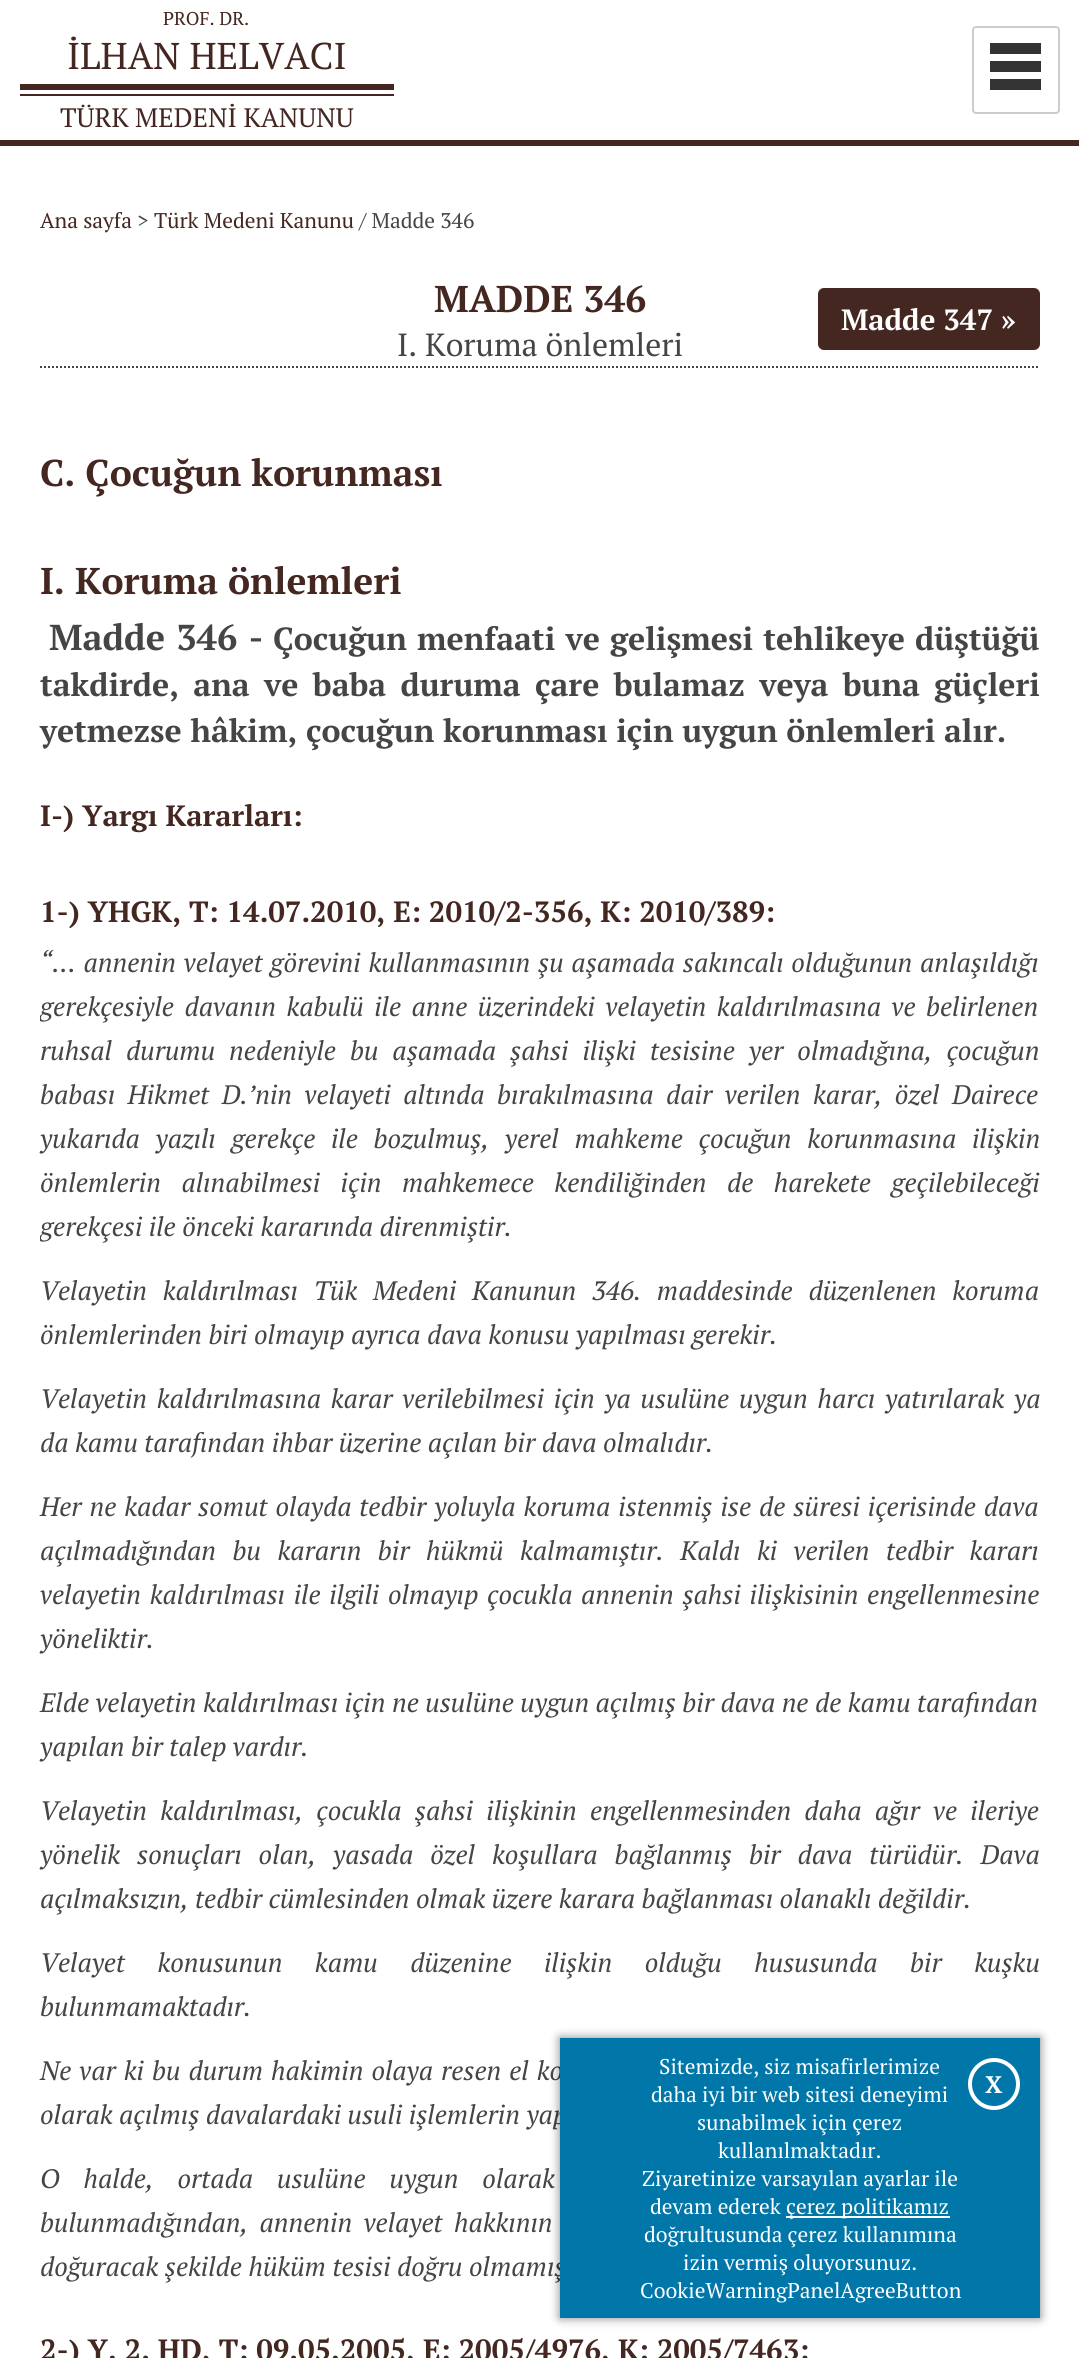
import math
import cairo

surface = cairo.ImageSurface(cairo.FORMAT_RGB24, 1079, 2358)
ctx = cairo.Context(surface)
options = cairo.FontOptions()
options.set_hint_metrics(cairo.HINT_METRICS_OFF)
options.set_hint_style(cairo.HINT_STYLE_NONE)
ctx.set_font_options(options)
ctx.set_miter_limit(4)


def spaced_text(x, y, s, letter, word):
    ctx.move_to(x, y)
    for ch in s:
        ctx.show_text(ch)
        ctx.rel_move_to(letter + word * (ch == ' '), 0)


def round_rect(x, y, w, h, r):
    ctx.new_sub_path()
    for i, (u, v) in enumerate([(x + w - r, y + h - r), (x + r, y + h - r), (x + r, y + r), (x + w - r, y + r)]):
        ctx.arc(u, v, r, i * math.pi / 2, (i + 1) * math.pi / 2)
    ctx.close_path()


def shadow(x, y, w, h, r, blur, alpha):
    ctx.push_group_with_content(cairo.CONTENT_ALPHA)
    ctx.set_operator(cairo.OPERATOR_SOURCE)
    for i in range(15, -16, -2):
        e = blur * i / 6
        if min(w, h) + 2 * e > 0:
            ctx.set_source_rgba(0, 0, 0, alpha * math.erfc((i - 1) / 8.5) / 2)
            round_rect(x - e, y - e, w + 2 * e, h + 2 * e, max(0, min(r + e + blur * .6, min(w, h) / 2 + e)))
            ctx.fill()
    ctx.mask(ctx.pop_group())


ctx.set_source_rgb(1, 1, 1)
ctx.paint()
ctx.select_font_face("PT Serif")
ctx.set_font_size(18.5)
ctx.set_source_rgb(0.267, 0.153, 0.129)
ctx.move_to(163, 25)
ctx.show_text("PROF. DR.")
ctx.rectangle(20, 84, 374, 6)
ctx.fill()
ctx.set_font_size(37.25)
ctx.move_to(67, 69)
ctx.show_text("İLHAN HELVACI")
ctx.rectangle(20, 94, 374, 2)
ctx.fill()
ctx.set_font_size(26.65)
ctx.move_to(60, 127)
ctx.show_text("TÜRK MEDENİ KANUNU")
round_rect(973, 27, 86, 86, 3)
ctx.set_source_rgb(0.8, 0.8, 0.8)
ctx.stroke()
ctx.set_source_rgb(0.2, 0.2, 0.2)
ctx.new_path()
ctx.move_to(1041, 43)
ctx.line_to(1041, 54)
ctx.line_to(990, 54)
ctx.line_to(990, 43)
ctx.close_path()
ctx.move_to(990, 61)
ctx.line_to(990, 72)
ctx.line_to(1041, 72)
ctx.line_to(1041, 61)
ctx.close_path()
ctx.move_to(1041, 79)
ctx.line_to(990, 79)
ctx.line_to(990, 90)
ctx.line_to(1041, 90)
ctx.close_path()
ctx.fill()
ctx.set_source_rgb(0.267, 0.153, 0.129)
ctx.rectangle(0, 140, 1079, 6)
ctx.fill()
ctx.set_font_size(21.3)
ctx.move_to(40, 228)
ctx.show_text("Ana sayfa")
ctx.set_source_rgb(0.271, 0.271, 0.271)
ctx.move_to(137, 228)
ctx.show_text(">")
ctx.set_source_rgb(0.267, 0.153, 0.129)
ctx.move_to(154, 228)
ctx.show_text("Türk Medeni Kanunu")
ctx.set_source_rgb(0.271, 0.271, 0.271)
ctx.move_to(359, 228)
ctx.show_text("/ Madde 346")
ctx.select_font_face("PT Serif", cairo.FONT_SLANT_NORMAL, cairo.FONT_WEIGHT_BOLD)
ctx.set_font_size(37.25)
ctx.set_source_rgb(0.267, 0.153, 0.129)
ctx.move_to(434, 312)
ctx.show_text("MADDE 346")
round_rect(818, 288, 222, 62, 6)
ctx.fill()
ctx.set_font_size(29.3)
ctx.set_source_rgb(1, 1, 1)
ctx.move_to(841, 330)
ctx.show_text("Madde 347 »")
ctx.new_path()
ctx.move_to(40, 367)
ctx.line_to(1040, 367)
ctx.set_source_rgb(0.271, 0.271, 0.271)
ctx.set_dash([2, 2])
ctx.stroke()
ctx.select_font_face("PT Serif")
ctx.set_font_size(32)
ctx.move_to(397, 356)
ctx.show_text("I. Koruma önlemleri")
ctx.select_font_face("PT Serif", cairo.FONT_SLANT_NORMAL, cairo.FONT_WEIGHT_BOLD)
ctx.set_font_size(37.25)
ctx.set_source_rgb(0.267, 0.153, 0.129)
ctx.move_to(40, 486)
ctx.show_text("C. Çocuğun korunması")
ctx.move_to(40, 594)
ctx.show_text("I. Koruma önlemleri")
ctx.set_font_size(36)
ctx.set_source_rgb(0.271, 0.271, 0.271)
spaced_text(49, 650, "Madde 346 -", 0, 1.5)
ctx.set_font_size(32)
spaced_text(273, 650, "Çocuğun menfaati ve gelişmesi tehlikeye düştüğü", 0, 1.5)
spaced_text(40, 696, "takdirde, ana ve baba duruma çare bulamaz veya buna güçleri", 0, 5.75)
ctx.move_to(40, 742)
ctx.show_text("yetmezse hâkim, çocuğun korunması için uygun önlemleri alır.")
ctx.set_font_size(29.3)
ctx.set_source_rgb(0.267, 0.153, 0.129)
ctx.move_to(40, 826)
ctx.show_text("I-) Yargı Kararları:")
ctx.move_to(40, 922)
ctx.show_text("1-) YHGK, T: 14.07.2010, E: 2010/2-356, K: 2010/389:")
ctx.select_font_face("PT Serif", cairo.FONT_SLANT_ITALIC)
ctx.set_font_size(26.65)
ctx.set_source_rgb(0.271, 0.271, 0.271)
spaced_text(40, 972, "“… annenin velayet görevini kullanmasının şu aşamada sakıncalı olduğunun anlaşıldığı", 0, 1.25)
ctx.save()
ctx.rectangle(40, 390, 1000, 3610)
ctx.clip()
spaced_text(40, 1016, "gerekçesiyle davanın kabulü ile anne üzerindeki velayetin kaldırılmasına ve belirlenen", 0, 4)
ctx.restore()
spaced_text(40, 1060, "ruhsal durumu nedeniyle bu aşamada şahsi ilişki tesisine yer olmadığına, çocuğun", 0, 7.5)
spaced_text(40, 1104, "babası Hikmet D.’nin velayeti altında bırakılmasına dair verilen karar, özel Dairece", 0, 6)
spaced_text(40, 1148, "yukarıda yazılı gerekçe ile bozulmuş, yerel mahkeme çocuğun korunmasına ilişkin", 0, 9.25)
spaced_text(40, 1192, "önlemlerin alınabilmesi için mahkemece kendiliğinden de harekete geçilebileceği", 0, 14)
ctx.save()
ctx.rectangle(40, 390, 1000, 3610)
ctx.clip()
ctx.move_to(40, 1236)
ctx.show_text("gerekçesi ile önceki kararında direnmiştir.")
ctx.restore()
spaced_text(40, 1300, "Velayetin kaldırılması Tük Medeni Kanunun 346. maddesinde düzenlenen koruma", 0, 9.25)
ctx.move_to(40, 1344)
ctx.show_text("önlemlerinden biri olmayıp ayrıca dava konusu yapılması gerekir.")
spaced_text(40, 1408, "Velayetin kaldırılmasına karar verilebilmesi için ya usulüne uygun harcı yatırılarak ya", 0, 3.25)
ctx.move_to(40, 1452)
ctx.show_text("da kamu tarafından ihbar üzerine açılan bir dava olmalıdır.")
spaced_text(40, 1516, "Her ne kadar somut olayda tedbir yoluyla koruma istenmiş ise de süresi içerisinde dava", 0, 1.5)
spaced_text(40, 1560, "açılmadığından bu kararın bir hükmü kalmamıştır. Kaldı ki verilen tedbir kararı", 0, 10)
spaced_text(40, 1604, "velayetin kaldırılması ile ilgili olmayıp çocukla annenin şahsi ilişkisinin engellenmesine", 0, 2.25)
ctx.move_to(40, 1648)
ctx.show_text("yöneliktir.")
ctx.move_to(40, 1712)
ctx.show_text("Elde velayetin kaldırılması için ne usulüne uygun açılmış bir dava ne de kamu tarafından")
ctx.move_to(40, 1756)
ctx.show_text("yapılan bir talep vardır.")
spaced_text(40, 1820, "Velayetin kaldırılması, çocukla şahsi ilişkinin engellenmesinden daha ağır ve ileriye", 0, 6.75)
spaced_text(40, 1864, "yönelik sonuçları olan, yasada özel koşullara bağlanmış bir dava türüdür. Dava", 0, 10.5)
ctx.move_to(40, 1908)
ctx.show_text("açılmaksızın, tedbir cümlesinden olmak üzere karara bağlanması olanaklı değildir.")
spaced_text(40, 1972, "Velayet konusunun kamu düzenine ilişkin olduğu hususunda bir kuşku", 0, 26)
ctx.move_to(40, 2016)
ctx.show_text("bulunmamaktadır.")
spaced_text(40, 2080, "Ne var ki bu durum hakimin olaya resen el ko", 0, 1.5)
ctx.move_to(40, 2124)
ctx.show_text("olarak açılmış davalardaki usuli işlemlerin yap")
spaced_text(40, 2188, "O halde, ortada usulüne uygun olarak", 0, 17.5)
spaced_text(40, 2232, "bulunmadığından, annenin velayet hakkının", 0, 5)
ctx.move_to(40, 2276)
ctx.show_text("doğuracak şekilde hüküm tesisi doğru olmamış")
ctx.select_font_face("PT Serif", cairo.FONT_SLANT_NORMAL, cairo.FONT_WEIGHT_BOLD)
ctx.set_font_size(29.3)
ctx.set_source_rgb(0.267, 0.153, 0.129)
ctx.move_to(40, 2360)
ctx.show_text("2-) Y. 2. HD, T: 09.05.2005, E: 2005/4976, K: 2005/7463:")
ctx.set_source_rgb(0, 0, 0)
shadow(560, 2038, 480, 280, 0, 5, 0.5)
ctx.set_source_rgb(0, 0.463, 0.663)
ctx.rectangle(560, 2038, 480, 280)
ctx.fill()
ctx.select_font_face("PT Serif")
ctx.set_font_size(21.3)
ctx.set_source_rgb(1, 1, 1)
ctx.move_to(659, 2074)
ctx.show_text("Sitemizde, siz misafirlerimize")
ctx.move_to(651, 2102)
ctx.show_text("daha iyi bir web sitesi deneyimi")
ctx.move_to(697, 2130)
ctx.show_text("sunabilmek için çerez")
ctx.move_to(718, 2158)
ctx.show_text("kullanılmaktadır.")
ctx.move_to(642, 2186)
ctx.show_text("Ziyaretinize varsayılan ayarlar ile")
ctx.move_to(650, 2214)
ctx.show_text("devam ederek")
ctx.rectangle(786, 2216, 164, 2)
ctx.fill()
ctx.move_to(786, 2214)
ctx.show_text("çerez politikamız")
ctx.move_to(644, 2242)
ctx.show_text("doğrultusunda çerez kullanımına")
ctx.move_to(683, 2270)
ctx.show_text("izin vermiş oluyorsunuz.")
ctx.move_to(640, 2298)
ctx.show_text("CookieWarningPanelAgreeButton")
ctx.new_path()
ctx.arc(994, 2084, 24, 0, 2 * math.pi)
ctx.set_line_width(4)
ctx.set_dash([])
ctx.stroke()
ctx.select_font_face("PT Serif", cairo.FONT_SLANT_NORMAL, cairo.FONT_WEIGHT_BOLD)
ctx.set_font_size(24)
ctx.move_to(985, 2093)
ctx.show_text("X")
surface.write_to_png("page.png")
